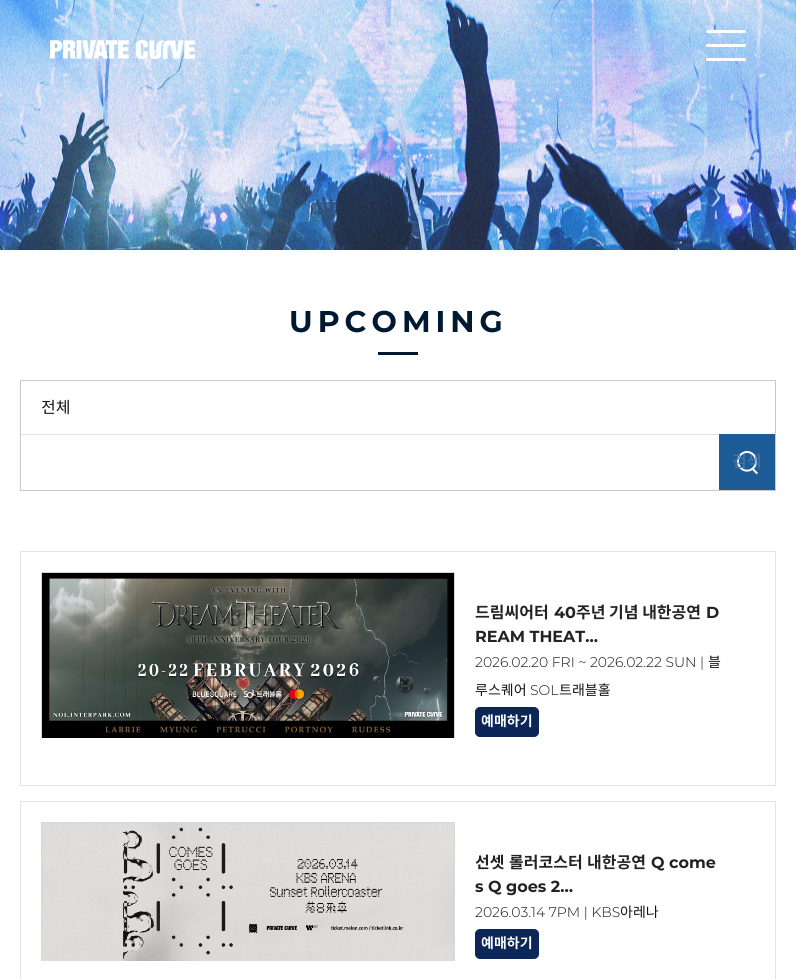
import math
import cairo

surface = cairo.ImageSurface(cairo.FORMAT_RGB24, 796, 979)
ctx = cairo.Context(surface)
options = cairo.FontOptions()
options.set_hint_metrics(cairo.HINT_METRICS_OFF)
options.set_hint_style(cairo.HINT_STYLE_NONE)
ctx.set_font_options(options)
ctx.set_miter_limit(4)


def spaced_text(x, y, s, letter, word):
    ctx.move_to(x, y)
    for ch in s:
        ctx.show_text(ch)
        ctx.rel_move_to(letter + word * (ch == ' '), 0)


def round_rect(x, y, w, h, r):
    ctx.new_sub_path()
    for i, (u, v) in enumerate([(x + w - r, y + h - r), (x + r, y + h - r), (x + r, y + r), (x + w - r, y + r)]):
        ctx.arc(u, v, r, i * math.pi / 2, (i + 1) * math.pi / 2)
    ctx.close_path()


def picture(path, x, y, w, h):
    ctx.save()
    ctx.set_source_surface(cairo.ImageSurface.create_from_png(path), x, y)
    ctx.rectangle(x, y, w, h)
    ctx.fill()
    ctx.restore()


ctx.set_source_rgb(1, 1, 1)
ctx.paint()
picture("img3.png", 0, 0, 796, 250)
picture("img1.png", 50, 40, 145, 19)
picture("img2.png", 706, 30, 40, 31)
ctx.select_font_face("Montserrat", cairo.FONT_SLANT_NORMAL, cairo.FONT_WEIGHT_BOLD)
ctx.set_font_size(30)
ctx.set_source_rgb(0, 0.098, 0.192)
spaced_text(289, 332, "UPCOMING", 5, 0)
ctx.rectangle(378, 352, 40, 3)
ctx.fill()
ctx.rectangle(20.5, 380.5, 755, 110)
ctx.set_source_rgb(0.788, 0.788, 0.788)
ctx.set_line_width(1)
ctx.stroke()
ctx.set_source_rgb(0.89, 0.89, 0.89)
ctx.rectangle(21, 434, 698, 1)
ctx.fill()
ctx.select_font_face("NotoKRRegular")
ctx.set_font_size(16)
ctx.set_source_rgb(0.075, 0.075, 0.075)
ctx.move_to(41, 413)
ctx.show_text("전체")
ctx.set_source_rgb(0.114, 0.361, 0.588)
ctx.rectangle(719, 434, 56, 56)
ctx.fill()
picture("img4.png", 737, 451, 21, 23)
ctx.set_source_rgb(0.294, 0.49, 0.671)
ctx.move_to(732, 467)
ctx.show_text("검색")
ctx.rectangle(20.5, 551.5, 755, 234)
ctx.set_source_rgb(0.89, 0.89, 0.89)
ctx.stroke()
ctx.set_source_rgb(0.843, 0.843, 0.843)
ctx.rectangle(41, 572, 414, 1)
ctx.fill()
ctx.rectangle(454, 572, 1, 166)
ctx.fill()
ctx.rectangle(41, 572, 1, 166)
ctx.fill()
picture("img5.png", 42, 573, 412, 165)
ctx.select_font_face("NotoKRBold", cairo.FONT_SLANT_NORMAL, cairo.FONT_WEIGHT_BOLD)
ctx.set_source_rgb(0.133, 0.133, 0.133)
ctx.move_to(475, 618)
ctx.show_text("드림씨어터")
ctx.select_font_face("Montserrat", cairo.FONT_SLANT_NORMAL, cairo.FONT_WEIGHT_BOLD)
ctx.move_to(554, 618)
ctx.show_text("40")
ctx.select_font_face("NotoKRBold", cairo.FONT_SLANT_NORMAL, cairo.FONT_WEIGHT_BOLD)
ctx.move_to(576, 618)
ctx.show_text("주년 기념 내한공연")
ctx.select_font_face("Montserrat", cairo.FONT_SLANT_NORMAL, cairo.FONT_WEIGHT_BOLD)
ctx.move_to(706, 618)
ctx.show_text("D")
ctx.move_to(475, 642)
ctx.show_text("REAM THEAT…")
ctx.select_font_face("Montserrat Light")
ctx.set_font_size(14)
ctx.set_source_rgb(0.075, 0.075, 0.075)
ctx.move_to(475, 667)
ctx.show_text("2026.02.20 FRI ~ 2026.02.22 SUN |")
ctx.select_font_face("NotoKRRegular")
ctx.move_to(708, 667)
ctx.show_text("블")
ctx.move_to(475, 695)
ctx.show_text("루스퀘어")
ctx.select_font_face("Montserrat Light")
ctx.move_to(530, 695)
ctx.show_text("SOL")
ctx.select_font_face("NotoKRRegular")
ctx.move_to(559, 695)
ctx.show_text("트래블홀")
ctx.set_source_rgb(0.043, 0.149, 0.341)
round_rect(475.5, 707.5, 63, 29, 4.5)
ctx.fill_preserve()
ctx.stroke()
ctx.select_font_face("NotoKRBold", cairo.FONT_SLANT_NORMAL, cairo.FONT_WEIGHT_BOLD)
ctx.set_source_rgb(1, 1, 1)
ctx.move_to(481, 726)
ctx.show_text("예매하기")
ctx.rectangle(20.5, 801.5, 755, 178)
ctx.set_source_rgb(0.89, 0.89, 0.89)
ctx.stroke()
ctx.set_source_rgb(0.843, 0.843, 0.843)
ctx.rectangle(41, 822, 414, 1)
ctx.fill()
ctx.rectangle(454, 822, 1, 139)
ctx.fill()
ctx.rectangle(41, 822, 1, 139)
ctx.fill()
picture("img6.png", 42, 823, 412, 138)
ctx.set_font_size(16)
ctx.set_source_rgb(0.133, 0.133, 0.133)
ctx.move_to(475, 868)
ctx.show_text("선셋")
ctx.move_to(509, 868)
ctx.show_text("롤러코스터")
ctx.move_to(587, 868)
ctx.show_text("내한공연")
ctx.select_font_face("Montserrat", cairo.FONT_SLANT_NORMAL, cairo.FONT_WEIGHT_BOLD)
ctx.move_to(651, 868)
ctx.show_text("Q come")
ctx.move_to(475, 892)
ctx.show_text("s Q goes 2…")
ctx.select_font_face("Montserrat Light")
ctx.set_font_size(14)
ctx.set_source_rgb(0.075, 0.075, 0.075)
ctx.move_to(475, 917)
ctx.show_text("2026.03.14 7PM | KBS")
ctx.select_font_face("NotoKRRegular")
ctx.move_to(620, 917)
ctx.show_text("아레나")
ctx.set_source_rgb(0.043, 0.149, 0.341)
round_rect(475.5, 929.5, 63, 29, 4.5)
ctx.fill_preserve()
ctx.stroke()
ctx.select_font_face("NotoKRBold", cairo.FONT_SLANT_NORMAL, cairo.FONT_WEIGHT_BOLD)
ctx.set_source_rgb(1, 1, 1)
ctx.move_to(481, 948)
ctx.show_text("예매하기")
surface.write_to_png("page.png")
